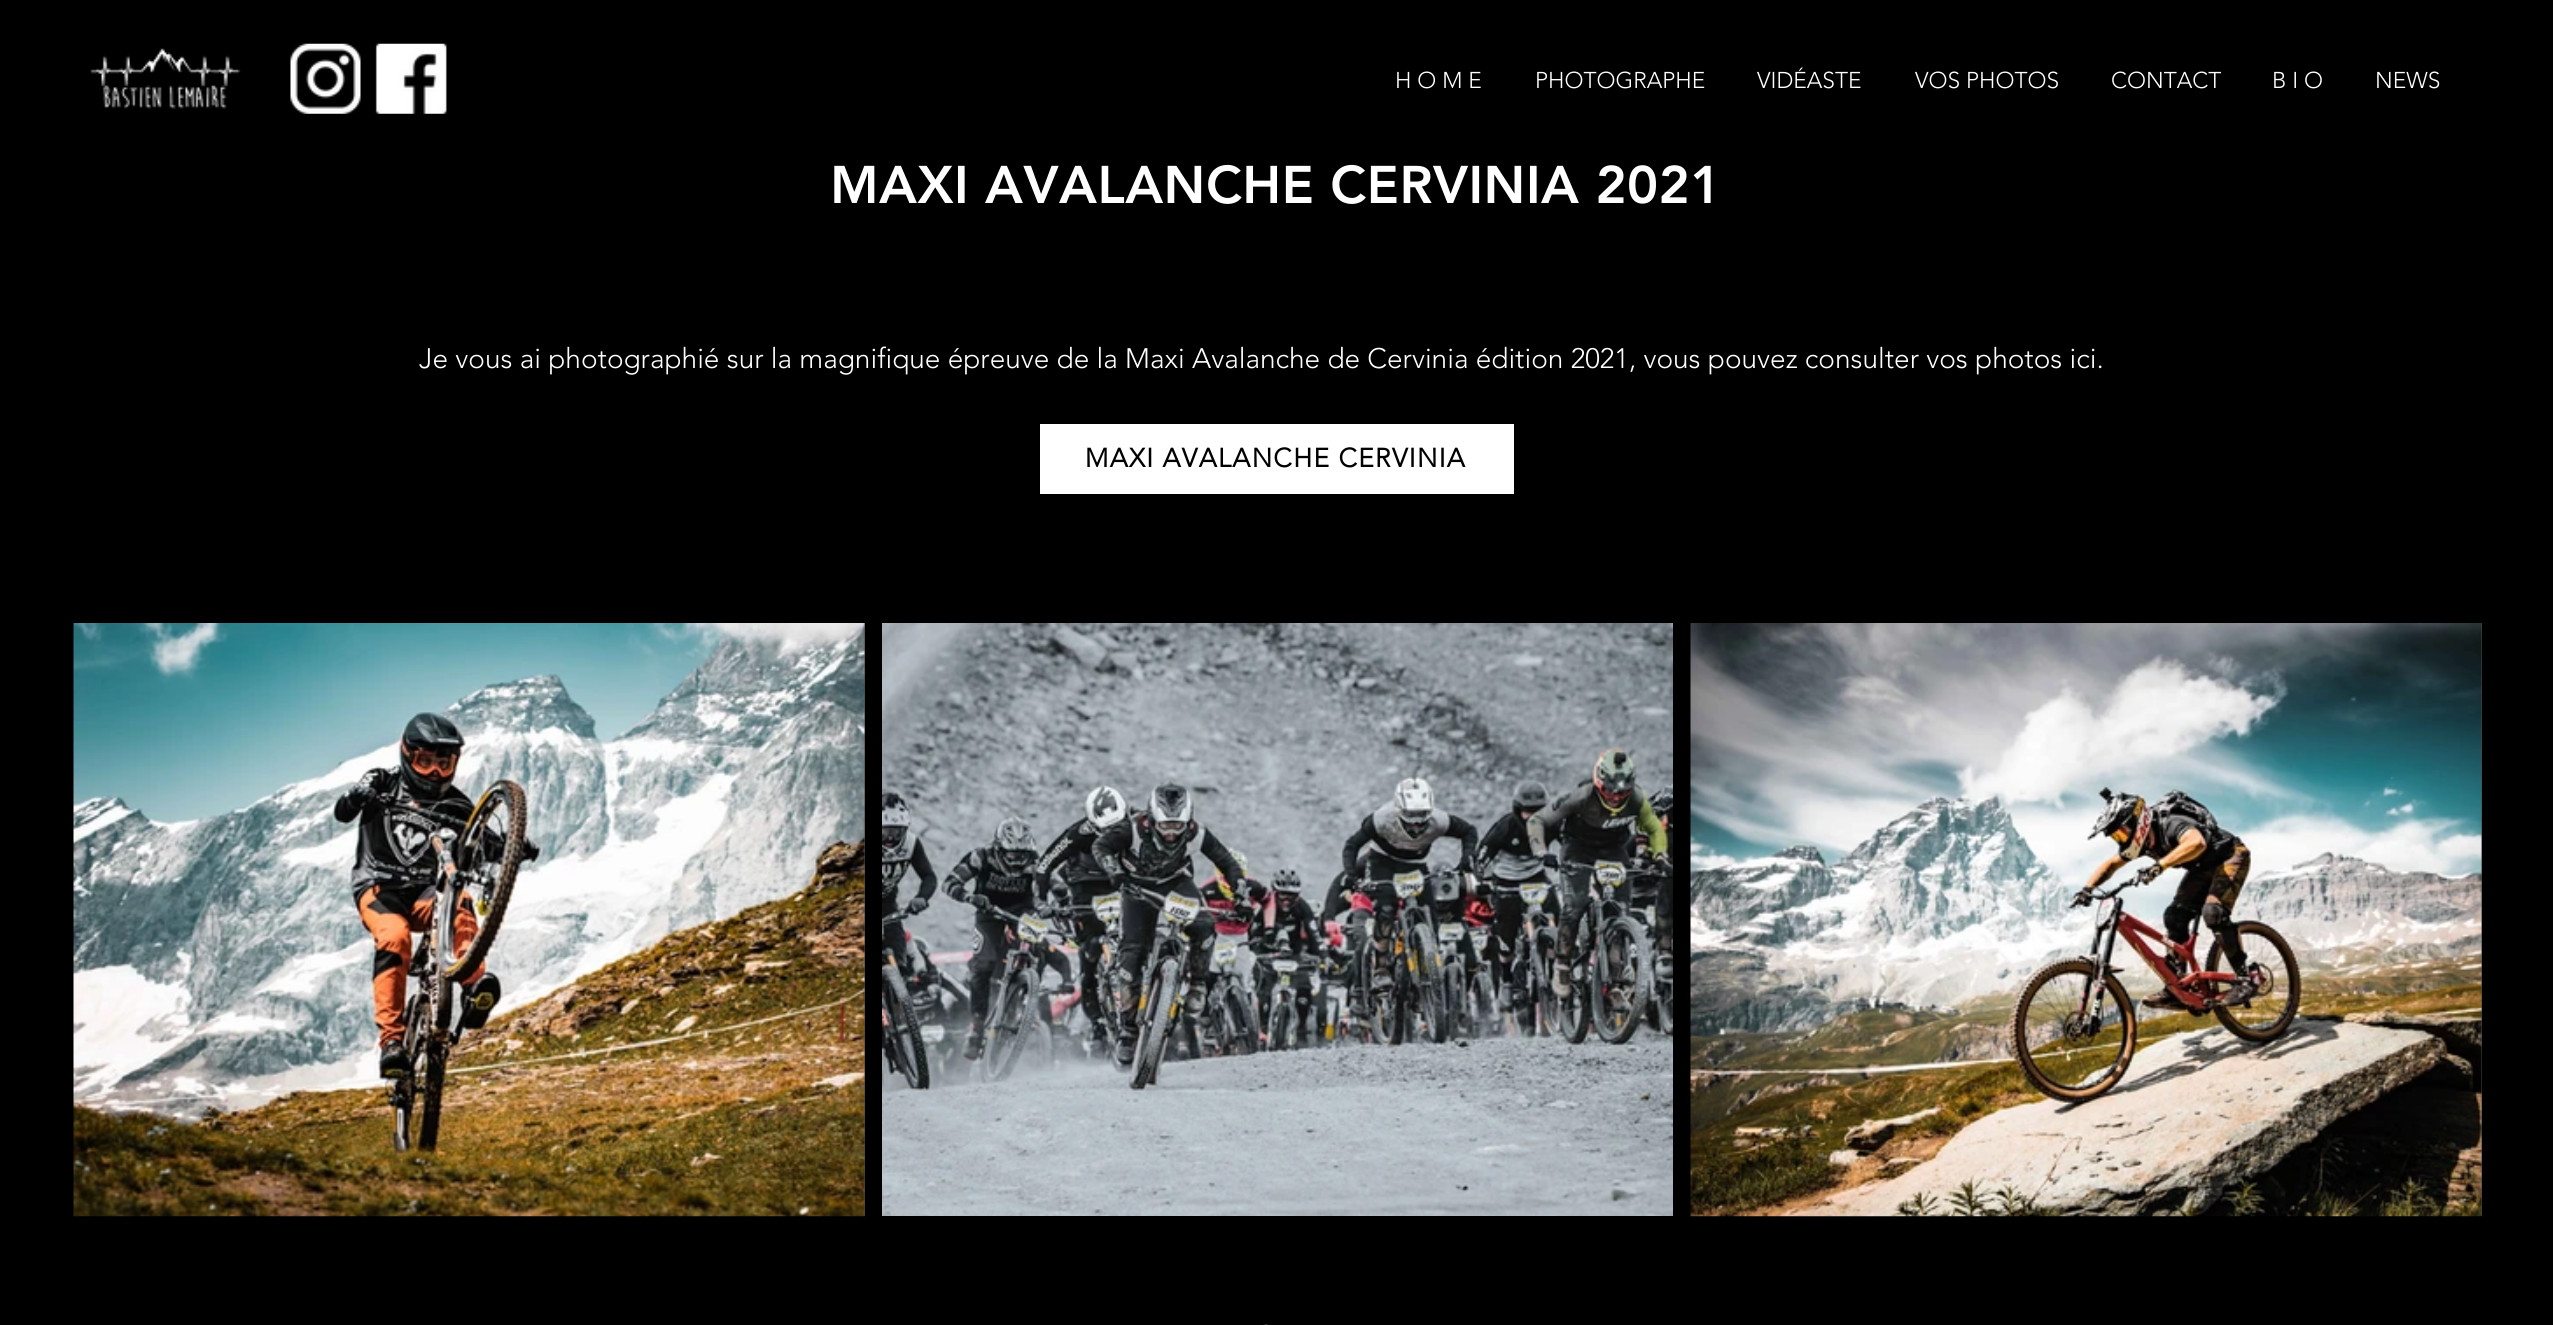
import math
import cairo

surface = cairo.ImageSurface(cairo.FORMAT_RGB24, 2553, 1325)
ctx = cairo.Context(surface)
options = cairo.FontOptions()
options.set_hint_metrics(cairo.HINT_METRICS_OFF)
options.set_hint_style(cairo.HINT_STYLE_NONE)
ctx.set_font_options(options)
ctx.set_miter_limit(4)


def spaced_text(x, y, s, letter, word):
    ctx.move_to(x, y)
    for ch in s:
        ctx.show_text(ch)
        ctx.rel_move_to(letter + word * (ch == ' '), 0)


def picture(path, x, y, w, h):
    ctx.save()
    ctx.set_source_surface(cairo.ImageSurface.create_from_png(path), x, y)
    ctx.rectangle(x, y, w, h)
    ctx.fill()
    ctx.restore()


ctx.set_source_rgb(0, 0, 0)
ctx.paint()
picture("img1.png", 90, 48, 151, 61)
picture("img2.png", 290, 43, 71, 71)
picture("img3.png", 375, 43, 72, 71)
ctx.select_font_face("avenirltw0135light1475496 Light")
ctx.set_font_size(22.75)
ctx.set_source_rgb(1, 1, 1)
ctx.move_to(1395, 88)
ctx.show_text("H O M E")
ctx.move_to(1535, 88)
ctx.show_text("PHOTOGRAPHE")
ctx.move_to(1757, 88)
ctx.show_text("VIDÉASTE")
ctx.move_to(1915, 88)
ctx.show_text("VOS PHOTOS")
ctx.move_to(2111, 88)
ctx.show_text("CONTACT")
ctx.move_to(2272, 88)
ctx.show_text("B I O")
ctx.move_to(2375, 88)
ctx.show_text("NEWS")
ctx.select_font_face("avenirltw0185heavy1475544 Black")
ctx.set_font_size(52.5)
spaced_text(830, 203, "MAXI AVALANCHE CERVINIA 2021", 0.5, 0)
ctx.select_font_face("avenirltw0135light1475496 Light")
ctx.set_font_size(28)
ctx.move_to(419, 368)
ctx.show_text("Je vous ai photographié sur la magnifique épreuve de la Maxi Avalanche de Cervinia édition 2021, vous pouvez consulter vos photos ici.")
ctx.rectangle(1040, 424, 474, 70)
ctx.fill()
ctx.select_font_face("avenirltw0135light1475496", cairo.FONT_SLANT_NORMAL, cairo.FONT_WEIGHT_BOLD)
ctx.set_font_size(26.25)
ctx.set_source_rgb(0, 0, 0)
spaced_text(1085, 467, "MAXI AVALANCHE CERVINIA", 1.3, 0)
ctx.set_source_rgb(0.29, 0.282, 0.275)
ctx.rectangle(864, 623, 1, 593)
ctx.fill()
picture("img4.png", 73, 623, 792, 594)
picture("img5.png", 882, 623, 791, 593)
ctx.rectangle(2481, 623, 1, 593)
ctx.fill()
picture("img6.png", 1690, 623, 792, 594)
picture("img7.png", 1263, 1324, 6, 1)
surface.write_to_png("page.png")
